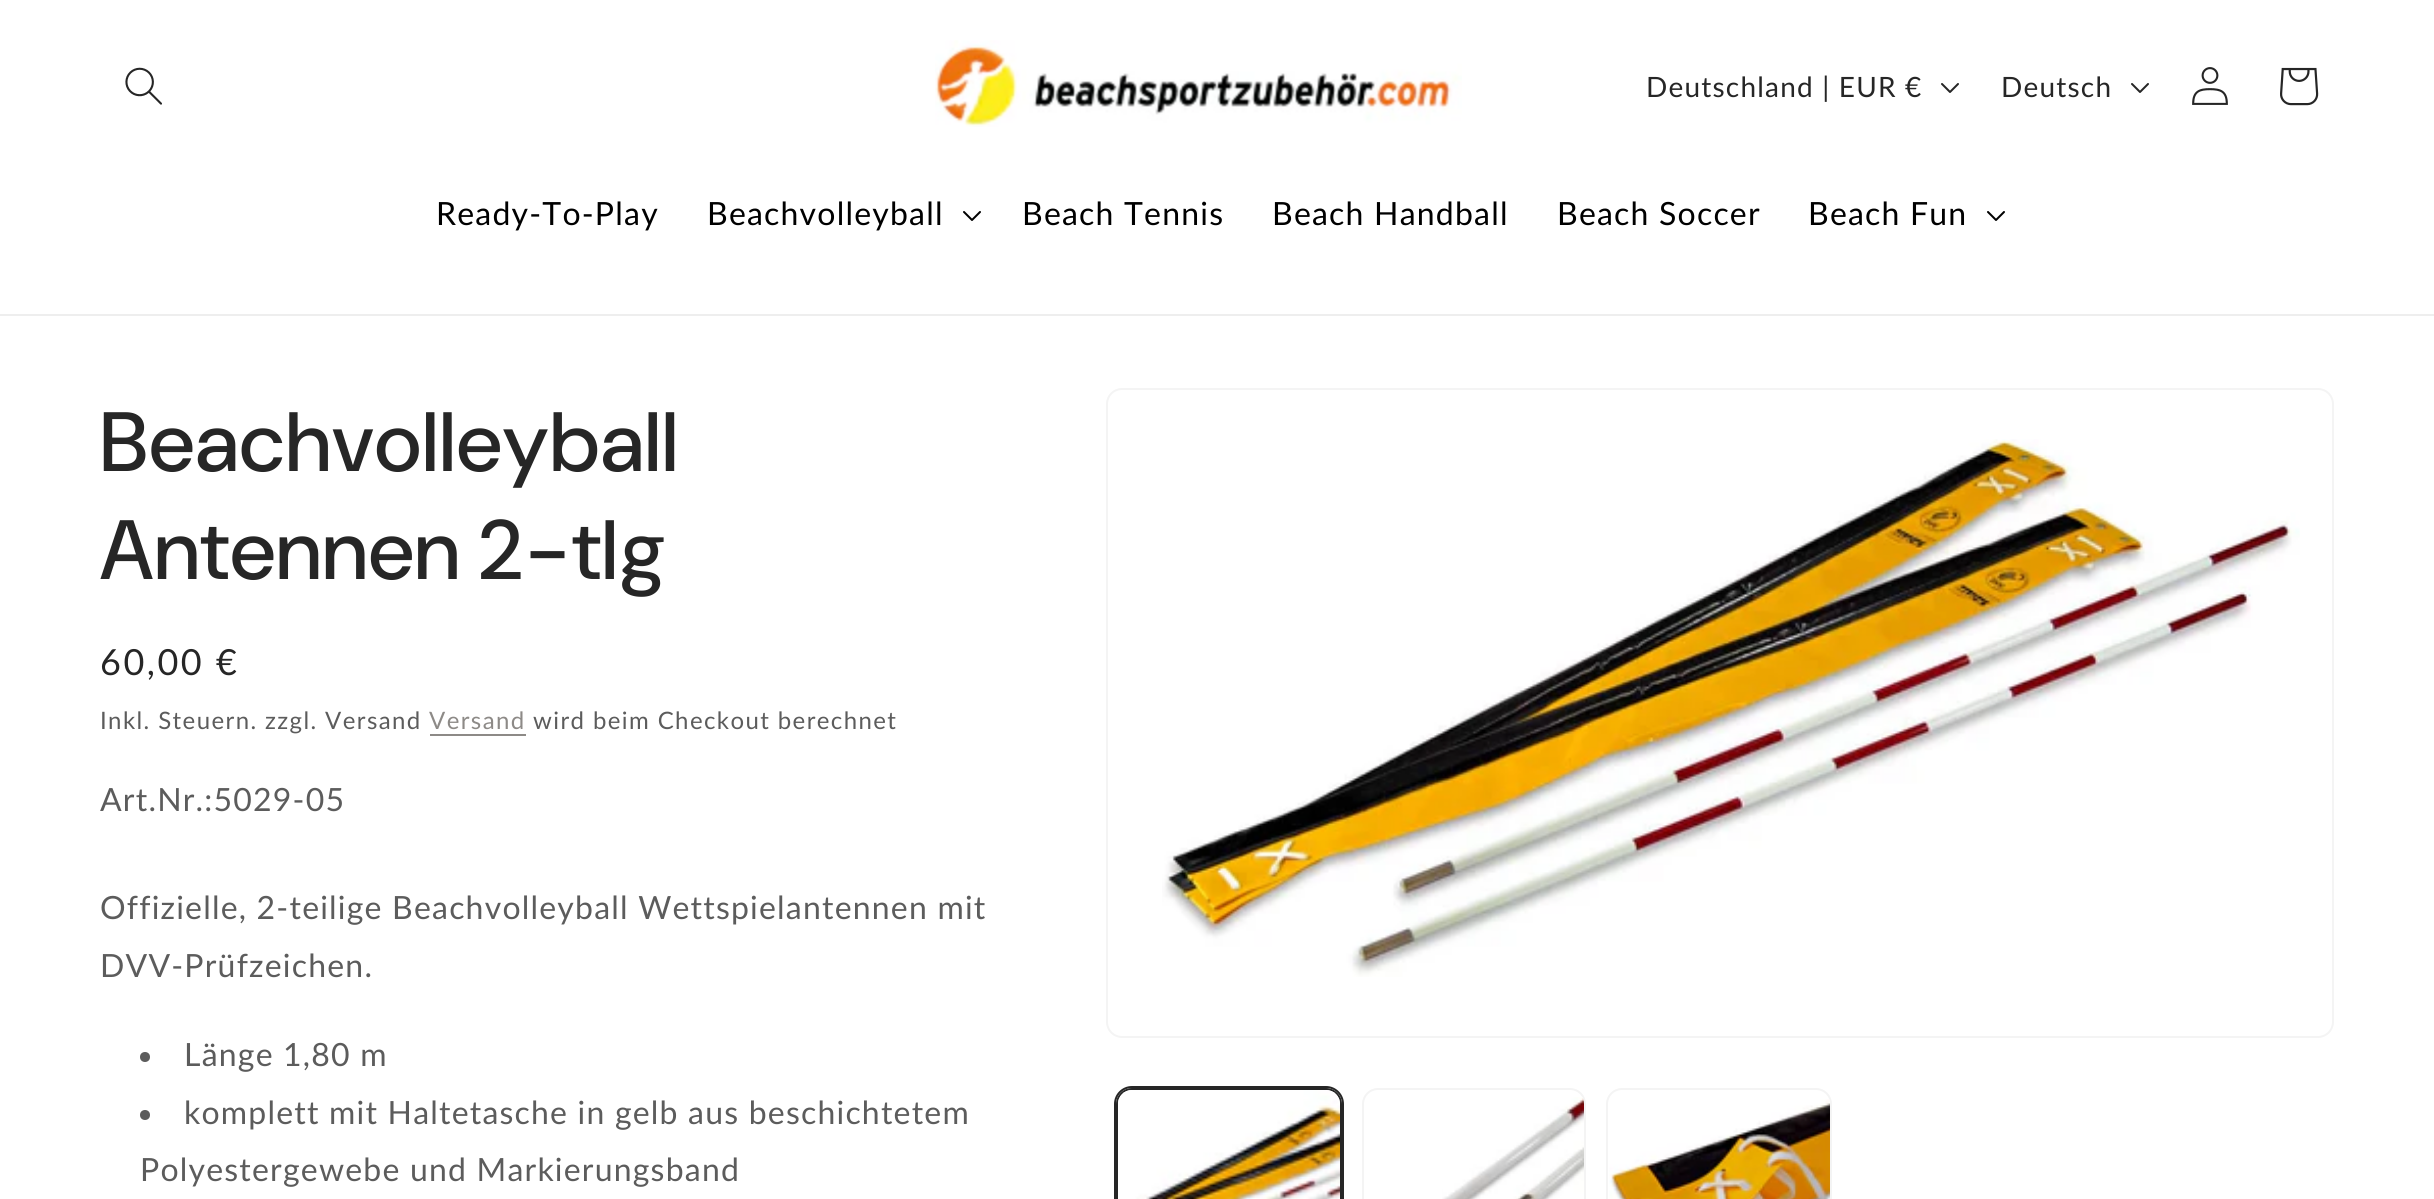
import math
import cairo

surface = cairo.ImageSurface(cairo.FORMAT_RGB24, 2434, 1199)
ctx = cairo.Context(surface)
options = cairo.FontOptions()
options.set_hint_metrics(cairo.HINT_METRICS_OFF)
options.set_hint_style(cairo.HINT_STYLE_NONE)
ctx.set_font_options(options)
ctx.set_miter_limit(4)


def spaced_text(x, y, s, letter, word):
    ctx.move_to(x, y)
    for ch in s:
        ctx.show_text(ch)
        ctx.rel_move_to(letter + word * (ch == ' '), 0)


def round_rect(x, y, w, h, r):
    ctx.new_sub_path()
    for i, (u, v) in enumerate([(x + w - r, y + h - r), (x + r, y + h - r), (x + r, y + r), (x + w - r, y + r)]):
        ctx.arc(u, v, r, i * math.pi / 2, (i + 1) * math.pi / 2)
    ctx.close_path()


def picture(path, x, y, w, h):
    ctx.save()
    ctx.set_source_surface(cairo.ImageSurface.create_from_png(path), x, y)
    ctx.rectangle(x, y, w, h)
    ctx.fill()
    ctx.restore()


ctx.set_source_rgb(1, 1, 1)
ctx.paint()
ctx.set_source_rgb(0.933, 0.933, 0.933)
ctx.rectangle(0, 314, 2434, 2)
ctx.fill()
picture("img1.png", 125, 67, 37, 38)
picture("img2.png", 935, 40, 527, 87)
ctx.select_font_face("Lato")
ctx.set_font_size(28)
ctx.set_source_rgb(0.149, 0.149, 0.149)
spaced_text(1646, 97, "Deutschland | EUR €", 1.2, 0)
picture("img3.png", 1941, 83, 18, 10)
spaced_text(2001, 97, "Deutsch", 1.2, 0)
picture("img3.png", 2131, 83, 18, 10)
picture("img4.png", 2192, 67, 36, 38)
picture("img5.png", 2280, 67, 39, 39)
ctx.set_font_size(32)
ctx.set_source_rgb(0, 0, 0)
spaced_text(436, 225, "Ready-To-Play", 1.2, 0)
spaced_text(707, 225, "Beachvolleyball", 1.2, 0)
picture("img6.png", 963, 211, 18, 10)
spaced_text(1022, 225, "Beach Tennis", 1.2, 0)
spaced_text(1272, 225, "Beach Handball", 1.2, 0)
spaced_text(1557, 225, "Beach Soccer", 1.2, 0)
spaced_text(1808, 225, "Beach Fun", 1.2, 0)
picture("img6.png", 1987, 211, 18, 10)
ctx.select_font_face("DM Sans Medium")
ctx.set_font_size(84)
ctx.set_source_rgb(0.149, 0.149, 0.149)
spaced_text(100, 471, "Beachvolleyball", 1.25, 0)
spaced_text(100, 579, "Antennen 2-tlg", 1.25, 0)
ctx.select_font_face("Lato")
ctx.set_font_size(36)
spaced_text(100, 675, "60,00 €", 2.5, 0)
ctx.set_font_size(24)
ctx.set_source_rgb(0.361, 0.361, 0.361)
spaced_text(100, 729, "Inkl. Steuern. zzgl. Versand", 1.4, 0)
ctx.set_source_rgb(0.553, 0.541, 0.529)
spaced_text(429, 729, "Versand", 1.4, 0)
ctx.rectangle(430, 734, 96, 2)
ctx.fill()
ctx.set_source_rgb(0.361, 0.361, 0.361)
spaced_text(533, 729, "wird beim Checkout berechnet", 1.4, 0)
ctx.set_font_size(32)
spaced_text(100, 811, "Art.Nr.:5029-05", 1.2, 0)
spaced_text(100, 919, "Offizielle, 2-teilige Beachvolleyball Wettspielantennen mit", 1.2, 0)
spaced_text(100, 977, "DVV-Prüfzeichen.", 1.2, 0)
ctx.new_path()
ctx.arc(145, 1057, 5, 0, 2 * math.pi)
ctx.fill()
spaced_text(184, 1066, "Länge 1,80 m", 1.2, 0)
ctx.new_path()
ctx.arc(145, 1115, 5, 0, 2 * math.pi)
ctx.fill()
spaced_text(184, 1124, "komplett mit Haltetasche in gelb aus beschichtetem", 1.2, 0)
spaced_text(140, 1181, "Polyestergewebe und Markierungsband", 1.2, 0)
round_rect(1107, 389, 1226, 648, 15)
ctx.set_source_rgb(0.957, 0.957, 0.957)
ctx.stroke()
picture("img7.png", 1162, 439, 1138, 538)
round_rect(1115, 1087, 228, 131, 17)
ctx.set_source_rgb(0.149, 0.149, 0.149)
ctx.stroke()
round_rect(1117, 1089, 224, 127, 15)
ctx.stroke()
picture("img8.png", 1118, 1090, 222, 109)
round_rect(1363, 1089, 222, 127, 15)
ctx.set_source_rgb(0.957, 0.957, 0.957)
ctx.stroke()
picture("img9.png", 1442, 1097, 142, 102)
round_rect(1607, 1089, 224, 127, 15)
ctx.stroke()
picture("img10.png", 1609, 1099, 221, 100)
surface.write_to_png("page.png")
